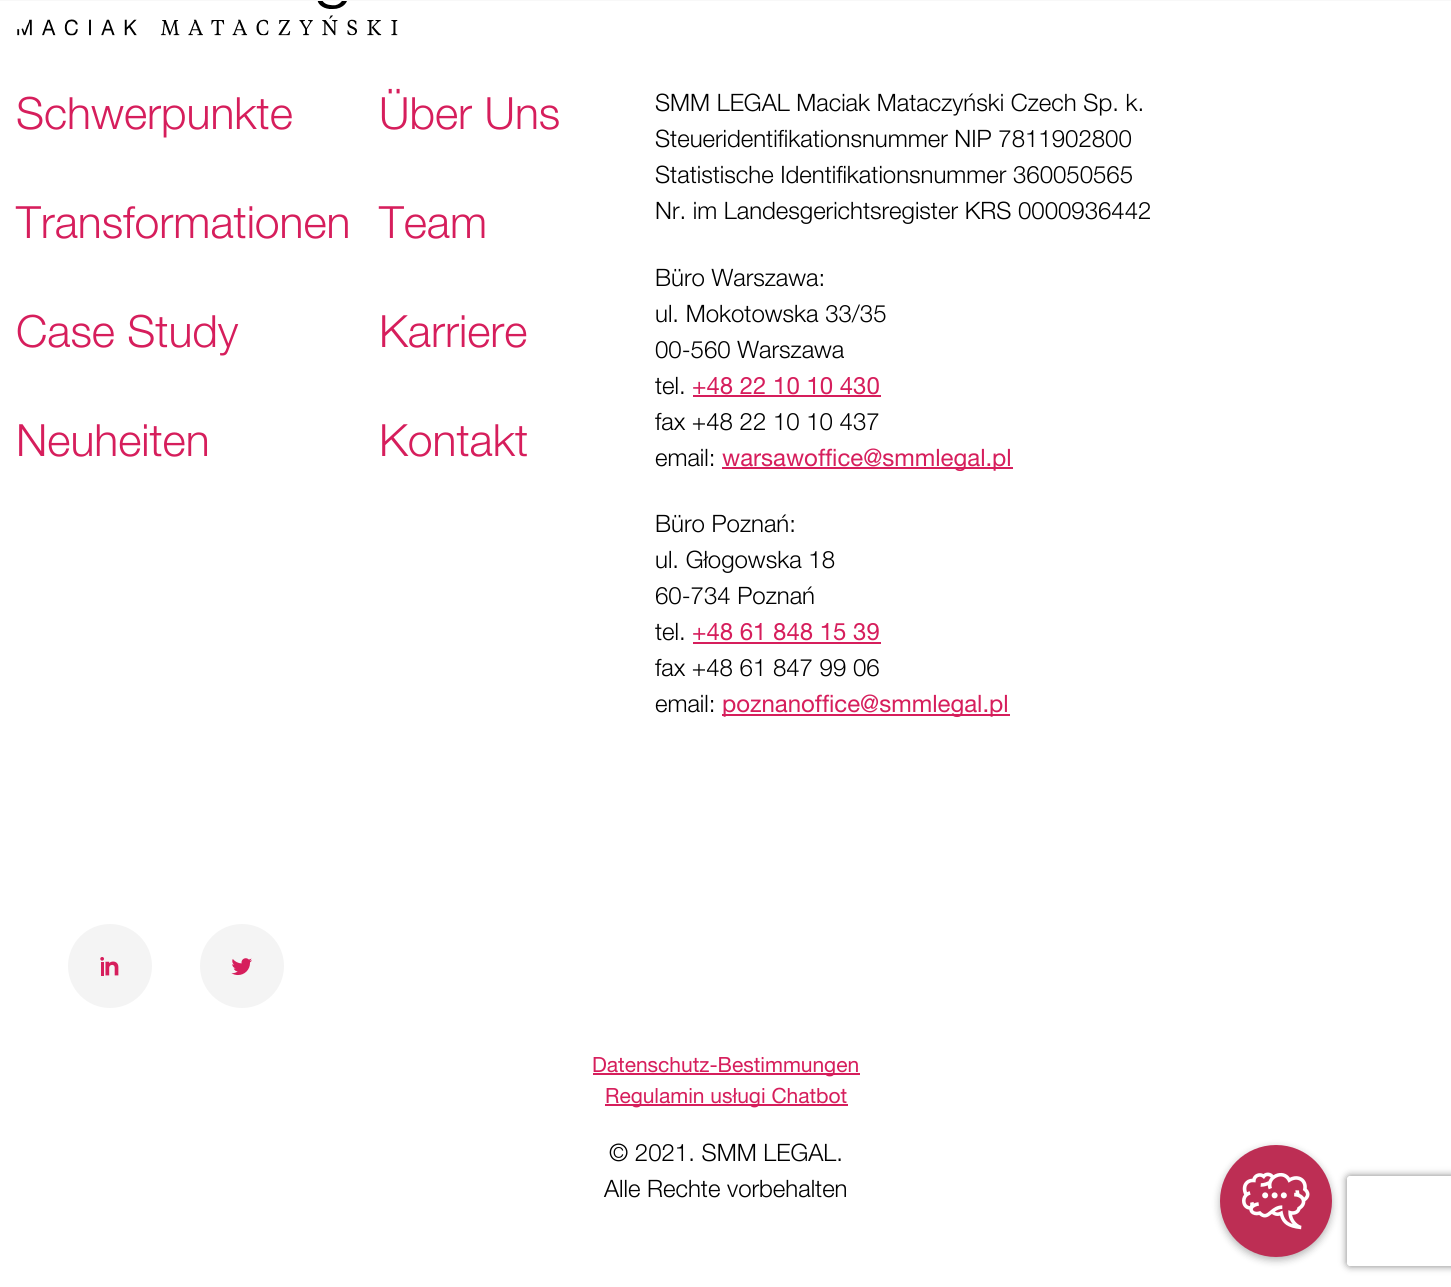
import math
import cairo

surface = cairo.ImageSurface(cairo.FORMAT_RGB24, 1451, 1287)
ctx = cairo.Context(surface)
options = cairo.FontOptions()
options.set_hint_metrics(cairo.HINT_METRICS_OFF)
options.set_hint_style(cairo.HINT_STYLE_NONE)
ctx.set_font_options(options)
ctx.set_miter_limit(4)


def round_rect(x, y, w, h, r):
    ctx.new_sub_path()
    for i, (u, v) in enumerate([(x + w - r, y + h - r), (x + r, y + h - r), (x + r, y + r), (x + w - r, y + r)]):
        ctx.arc(u, v, r, i * math.pi / 2, (i + 1) * math.pi / 2)
    ctx.close_path()


def shadow(x, y, w, h, r, blur, alpha):
    ctx.push_group_with_content(cairo.CONTENT_ALPHA)
    ctx.set_operator(cairo.OPERATOR_SOURCE)
    for i in range(15, -16, -2):
        e = blur * i / 6
        if min(w, h) + 2 * e > 0:
            ctx.set_source_rgba(0, 0, 0, alpha * math.erfc((i - 1) / 8.5) / 2)
            round_rect(x - e, y - e, w + 2 * e, h + 2 * e, max(0, min(r + e + blur * .6, min(w, h) / 2 + e)))
            ctx.fill()
    ctx.mask(ctx.pop_group())


def picture(path, x, y, w, h):
    ctx.save()
    ctx.set_source_surface(cairo.ImageSurface.create_from_png(path), x, y)
    ctx.rectangle(x, y, w, h)
    ctx.fill()
    ctx.restore()


ctx.set_source_rgb(1, 1, 1)
ctx.paint()
picture("img1.png", 17, 1, 381, 35)
ctx.set_source_rgb(1, 1, 1)
ctx.arc(19, 19, 9.5, 0, 2 * math.pi)
ctx.fill_preserve()
ctx.set_line_width(1.5)
ctx.stroke()
ctx.set_source_rgb(0.969, 0.969, 0.969)
ctx.rectangle(0, 0, 1451, 1)
ctx.fill()
ctx.select_font_face("Helvetica Neue Light")
ctx.set_font_size(44.5)
ctx.set_source_rgb(0.839, 0.118, 0.361)
ctx.move_to(16, 129)
ctx.show_text("Schwerpunkte")
ctx.move_to(379, 129)
ctx.show_text("Über Uns")
ctx.move_to(16, 238)
ctx.show_text("Transformationen")
ctx.move_to(379, 238)
ctx.show_text("Team")
ctx.move_to(16, 347)
ctx.show_text("Case Study")
ctx.move_to(379, 347)
ctx.show_text("Karriere")
ctx.move_to(16, 456)
ctx.show_text("Neuheiten")
ctx.move_to(379, 456)
ctx.show_text("Kontakt")
ctx.set_font_size(24)
ctx.set_source_rgb(0, 0, 0)
ctx.move_to(655, 111)
ctx.show_text("SMM LEGAL Maciak Mataczyński Czech Sp. k.")
ctx.move_to(655, 147)
ctx.show_text("Steueridentifikationsnummer NIP 7811902800")
ctx.move_to(655, 183)
ctx.show_text("Statistische Identifikationsnummer 360050565")
ctx.move_to(655, 219)
ctx.show_text("Nr. im Landesgerichtsregister KRS 0000936442")
ctx.move_to(655, 286)
ctx.show_text("Büro Warszawa:")
ctx.move_to(655, 322)
ctx.show_text("ul. Mokotowska 33/35")
ctx.move_to(655, 358)
ctx.show_text("00-560 Warszawa")
ctx.move_to(655, 394)
ctx.show_text("tel.")
ctx.select_font_face("Helvetica Neue")
ctx.set_source_rgb(0.839, 0.118, 0.361)
ctx.move_to(692, 394)
ctx.show_text("+48 22 10 10 430")
ctx.rectangle(693, 395, 188, 2)
ctx.fill()
ctx.select_font_face("Helvetica Neue Light")
ctx.set_source_rgb(0, 0, 0)
ctx.move_to(655, 430)
ctx.show_text("fax +48 22 10 10 437")
ctx.move_to(655, 466)
ctx.show_text("email:")
ctx.set_source_rgb(0.839, 0.118, 0.361)
ctx.rectangle(722, 467, 291, 2)
ctx.fill()
ctx.select_font_face("Helvetica Neue")
ctx.move_to(722, 466)
ctx.show_text("warsawoffice@smmlegal.pl")
ctx.select_font_face("Helvetica Neue Light")
ctx.set_source_rgb(0, 0, 0)
ctx.move_to(655, 532)
ctx.show_text("Büro Poznań:")
ctx.move_to(655, 568)
ctx.show_text("ul. Głogowska 18")
ctx.move_to(655, 604)
ctx.show_text("60-734 Poznań")
ctx.move_to(655, 640)
ctx.show_text("tel.")
ctx.select_font_face("Helvetica Neue")
ctx.set_source_rgb(0.839, 0.118, 0.361)
ctx.move_to(692, 640)
ctx.show_text("+48 61 848 15 39")
ctx.rectangle(693, 642, 188, 2)
ctx.fill()
ctx.select_font_face("Helvetica Neue Light")
ctx.set_source_rgb(0, 0, 0)
ctx.move_to(655, 676)
ctx.show_text("fax +48 61 847 99 06")
ctx.move_to(655, 712)
ctx.show_text("email:")
ctx.set_source_rgb(0.839, 0.118, 0.361)
ctx.rectangle(722, 714, 288, 2)
ctx.fill()
ctx.select_font_face("Helvetica Neue")
ctx.move_to(722, 712)
ctx.show_text("poznanoffice@smmlegal.pl")
ctx.set_source_rgb(0.957, 0.957, 0.957)
ctx.new_path()
ctx.arc(110, 966, 41, 0, 2 * math.pi)
ctx.fill_preserve()
ctx.set_line_width(2)
ctx.stroke()
picture("img2.png", 100, 957, 19, 19)
ctx.arc(242, 966, 41, 0, 2 * math.pi)
ctx.fill_preserve()
ctx.stroke()
picture("img3.png", 231, 958, 21, 18)
ctx.set_source_rgb(0.839, 0.118, 0.361)
ctx.rectangle(593, 1073, 267, 2)
ctx.fill()
ctx.set_font_size(21)
ctx.move_to(592, 1072)
ctx.show_text("Datenschutz-Bestimmungen")
ctx.rectangle(605, 1104, 243, 2)
ctx.fill()
ctx.move_to(605, 1103)
ctx.show_text("Regulamin usługi Chatbot")
ctx.select_font_face("Helvetica Neue Light")
ctx.set_font_size(24)
ctx.set_source_rgb(0, 0, 0)
ctx.move_to(609, 1161)
ctx.show_text("© 2021. SMM LEGAL.")
ctx.move_to(604, 1197)
ctx.show_text("Alle Rechte vorbehalten")
ctx.set_source_rgb(0, 0, 0)
shadow(1220, 1148, 112, 112, 56, 4, 0.3)
ctx.set_source_rgb(0.741, 0.18, 0.329)
ctx.arc(1276, 1201, 56, 0, 2 * math.pi)
ctx.fill()
picture("img4.png", 1242, 1172, 68, 58)
ctx.save()
ctx.set_fill_rule(cairo.FILL_RULE_EVEN_ODD)
ctx.new_path()
ctx.move_to(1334, 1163)
ctx.line_to(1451, 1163)
ctx.line_to(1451, 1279)
ctx.line_to(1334, 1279)
ctx.close_path()
ctx.move_to(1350, 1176)
ctx.line_to(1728, 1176)
ctx.curve_to(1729.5, 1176, 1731, 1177.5, 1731, 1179)
ctx.line_to(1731, 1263)
ctx.curve_to(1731, 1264.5, 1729.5, 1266, 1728, 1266)
ctx.line_to(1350, 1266)
ctx.curve_to(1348.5, 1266, 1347, 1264.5, 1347, 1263)
ctx.line_to(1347, 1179)
ctx.curve_to(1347, 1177.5, 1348.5, 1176, 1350, 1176)
ctx.close_path()
ctx.clip()
ctx.set_source_rgb(0.502, 0.502, 0.502)
shadow(1347, 1176, 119, 90, 3, 4, 1)
ctx.restore()
surface.write_to_png("page.png")
